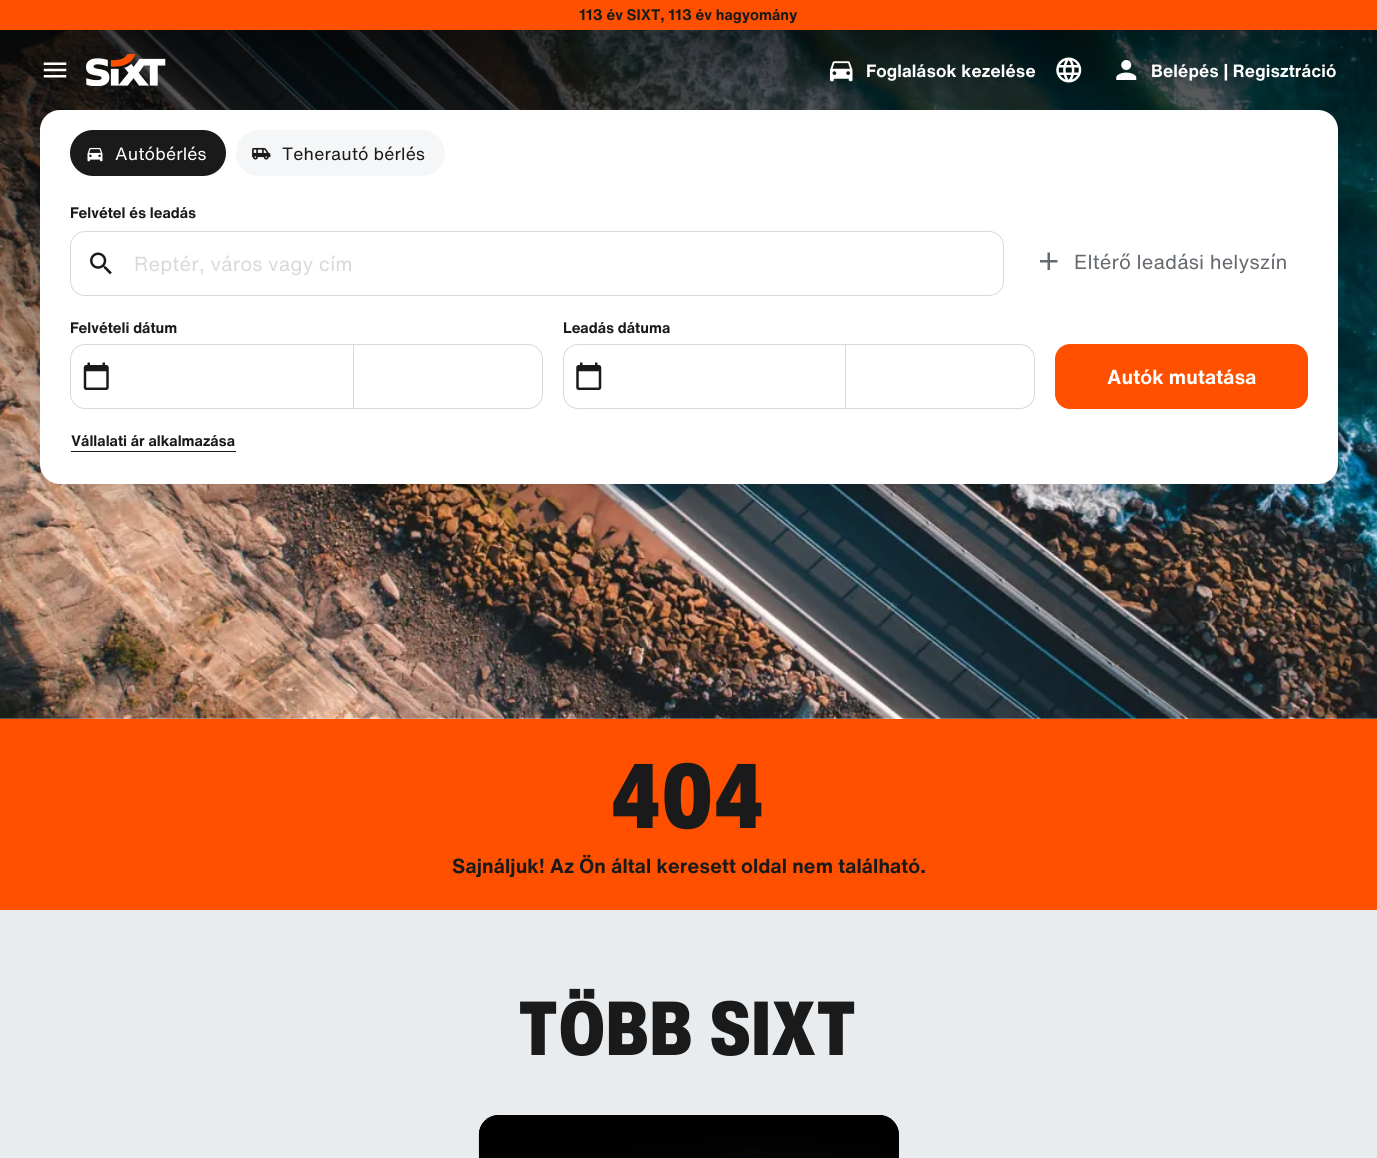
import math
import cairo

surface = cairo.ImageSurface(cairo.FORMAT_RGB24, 1377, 1158)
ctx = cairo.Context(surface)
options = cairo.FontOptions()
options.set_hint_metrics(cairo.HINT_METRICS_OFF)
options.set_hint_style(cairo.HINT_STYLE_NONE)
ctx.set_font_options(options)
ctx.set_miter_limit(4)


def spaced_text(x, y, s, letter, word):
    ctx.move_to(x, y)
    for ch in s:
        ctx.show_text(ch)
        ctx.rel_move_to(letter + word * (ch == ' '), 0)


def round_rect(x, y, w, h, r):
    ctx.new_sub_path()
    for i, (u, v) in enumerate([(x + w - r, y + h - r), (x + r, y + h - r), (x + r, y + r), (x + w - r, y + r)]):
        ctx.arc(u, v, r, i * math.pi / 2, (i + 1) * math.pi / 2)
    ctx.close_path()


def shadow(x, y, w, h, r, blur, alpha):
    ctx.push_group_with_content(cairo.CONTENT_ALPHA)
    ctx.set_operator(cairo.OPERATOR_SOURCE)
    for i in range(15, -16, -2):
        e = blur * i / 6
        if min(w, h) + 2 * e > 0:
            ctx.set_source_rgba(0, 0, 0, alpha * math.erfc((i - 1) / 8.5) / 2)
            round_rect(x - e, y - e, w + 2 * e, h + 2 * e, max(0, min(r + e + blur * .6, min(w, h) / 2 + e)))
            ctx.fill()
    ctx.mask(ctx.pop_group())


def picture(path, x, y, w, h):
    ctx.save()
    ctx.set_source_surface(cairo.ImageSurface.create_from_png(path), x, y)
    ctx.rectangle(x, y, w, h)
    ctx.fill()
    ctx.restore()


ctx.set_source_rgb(1, 1, 1)
ctx.paint()
ctx.set_source_rgb(1, 0.314, 0)
ctx.rectangle(0, 0, 1377, 30)
ctx.fill()
ctx.select_font_face("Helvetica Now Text", cairo.FONT_SLANT_NORMAL, cairo.FONT_WEIGHT_BOLD)
ctx.set_font_size(15)
ctx.set_source_rgb(0.102, 0.102, 0.102)
ctx.move_to(579, 20)
ctx.show_text("113 év SIXT, 113 év hagyomány")
picture("img6.png", 0, 30, 1377, 689)
ctx.set_source_rgb(0, 0, 0)
shadow(40, 120, 1298, 374, 20, 20, 0.08)
shadow(40, 125, 1298, 374, 20, 25, 0.1)
picture("img1.png", 43, 62, 24, 16)
picture("img2.png", 86, 54, 80, 32)
picture("img3.png", 830, 61, 23, 21)
ctx.set_font_size(17.5)
ctx.set_source_rgb(1, 1, 1)
spaced_text(866, 77, "Foglalások kezelése", 0.15, 0)
picture("img4.png", 1056, 57, 26, 26)
picture("img5.png", 1116, 60, 21, 20)
spaced_text(1151, 77, "Belépés | Regisztráció", 0.15, 0)
round_rect(40, 110, 1298, 374, 20)
ctx.fill()
ctx.set_source_rgb(0.102, 0.102, 0.102)
round_rect(70, 130, 156, 46, 23)
ctx.fill()
picture("img7.png", 87, 147, 16, 15)
ctx.select_font_face("Helvetica Now Text")
ctx.set_source_rgb(1, 1, 1)
spaced_text(115, 160, "Autóbérlés", 0.15, 0)
ctx.set_source_rgb(0.957, 0.961, 0.965)
round_rect(236, 130, 209, 46, 23)
ctx.fill()
picture("img8.png", 252, 147, 19, 13)
ctx.set_source_rgb(0.102, 0.102, 0.102)
spaced_text(282, 160, "Teherautó bérlés", 0.15, 0)
ctx.select_font_face("Helvetica Now Text", cairo.FONT_SLANT_NORMAL, cairo.FONT_WEIGHT_BOLD)
ctx.set_font_size(15)
ctx.move_to(70, 218)
ctx.show_text("Felvétel és leadás")
round_rect(70.5, 231.5, 933, 64, 14.5)
ctx.set_source_rgb(0.843, 0.855, 0.863)
ctx.set_line_width(1)
ctx.stroke()
picture("img9.png", 90, 252, 22, 23)
ctx.select_font_face("Helvetica Now Text")
ctx.set_font_size(20)
spaced_text(134, 271, "Reptér, város vagy cím", 0.13, 0)
picture("img10.png", 1040, 252, 18, 18)
ctx.set_source_rgb(0.396, 0.416, 0.435)
spaced_text(1074, 269, "Eltérő leadási helyszín", 0.13, 0)
ctx.select_font_face("Helvetica Now Text", cairo.FONT_SLANT_NORMAL, cairo.FONT_WEIGHT_BOLD)
ctx.set_font_size(15)
ctx.set_source_rgb(0.102, 0.102, 0.102)
ctx.move_to(70, 333)
ctx.show_text("Felvételi dátum")
ctx.new_path()
ctx.move_to(85, 344.5)
ctx.line_to(353.5, 344.5)
ctx.line_to(353.5, 408.5)
ctx.line_to(85, 408.5)
ctx.curve_to(77, 408.5, 70.5, 402, 70.5, 394)
ctx.line_to(70.5, 359)
ctx.curve_to(70.5, 351, 77, 344.5, 85, 344.5)
ctx.close_path()
ctx.set_source_rgb(0.843, 0.855, 0.863)
ctx.stroke()
picture("img11.png", 83, 362, 26, 28)
ctx.new_path()
ctx.move_to(353.5, 344.5)
ctx.line_to(528, 344.5)
ctx.curve_to(536, 344.5, 542.5, 351, 542.5, 359)
ctx.line_to(542.5, 394)
ctx.curve_to(542.5, 402, 536, 408.5, 528, 408.5)
ctx.line_to(353.5, 408.5)
ctx.close_path()
ctx.stroke()
ctx.set_source_rgb(0.102, 0.102, 0.102)
ctx.move_to(563, 333)
ctx.show_text("Leadás dátuma")
ctx.new_path()
ctx.move_to(578, 344.5)
ctx.line_to(845.5, 344.5)
ctx.line_to(845.5, 408.5)
ctx.line_to(578, 408.5)
ctx.curve_to(570, 408.5, 563.5, 402, 563.5, 394)
ctx.line_to(563.5, 359)
ctx.curve_to(563.5, 351, 570, 344.5, 578, 344.5)
ctx.close_path()
ctx.set_source_rgb(0.843, 0.855, 0.863)
ctx.stroke()
picture("img12.png", 576, 362, 26, 28)
ctx.new_path()
ctx.move_to(845.5, 344.5)
ctx.line_to(1020, 344.5)
ctx.curve_to(1028, 344.5, 1034.5, 351, 1034.5, 359)
ctx.line_to(1034.5, 394)
ctx.curve_to(1034.5, 402, 1028, 408.5, 1020, 408.5)
ctx.line_to(845.5, 408.5)
ctx.close_path()
ctx.stroke()
ctx.set_source_rgb(1, 0.314, 0)
round_rect(1055, 344, 253, 65, 15)
ctx.fill()
ctx.set_font_size(20)
ctx.set_source_rgb(1, 1, 1)
spaced_text(1107, 384, "Autók mutatása", 0.13, 0)
ctx.set_source_rgb(0.102, 0.102, 0.102)
ctx.rectangle(71, 451, 165, 1)
ctx.fill()
ctx.set_font_size(15)
ctx.move_to(71, 446)
ctx.show_text("Vállalati ár alkalmazása")
ctx.set_source_rgb(1, 0.314, 0)
ctx.rectangle(0, 719, 1377, 191)
ctx.fill()
ctx.select_font_face("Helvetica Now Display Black")
ctx.set_font_size(90)
ctx.set_source_rgb(0.102, 0.102, 0.102)
spaced_text(611, 828, "404", 2, 0)
ctx.select_font_face("Helvetica Now Text", cairo.FONT_SLANT_NORMAL, cairo.FONT_WEIGHT_BOLD)
ctx.set_font_size(20)
spaced_text(452, 873, "Sajnáljuk! Az Ön által keresett oldal nem található.", 0.13, 0)
ctx.set_source_rgb(0.914, 0.922, 0.933)
ctx.rectangle(0, 910, 1377, 248)
ctx.fill()
ctx.select_font_face("Helvetica Now Display Black")
ctx.set_font_size(75)
ctx.set_source_rgb(0.102, 0.102, 0.102)
spaced_text(519, 1055, "TÖBB SIXT", 2.25, 0)
round_rect(479, 1115, 420, 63, 20)
ctx.fill()
picture("img13.png", 478, 1115, 421, 43)
gradient = cairo.LinearGradient(689, 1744, 689, 1115)
gradient.add_color_stop_rgba(0.57, 0, 0, 0, 0)
gradient.add_color_stop_rgba(0.71, 0, 0, 0, 0.6)
gradient.add_color_stop_rgba(1, 0, 0, 0, 0.6)
ctx.set_source(gradient)
round_rect(479, 1115, 420, 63, 20)
ctx.fill()
surface.write_to_png("page.png")
